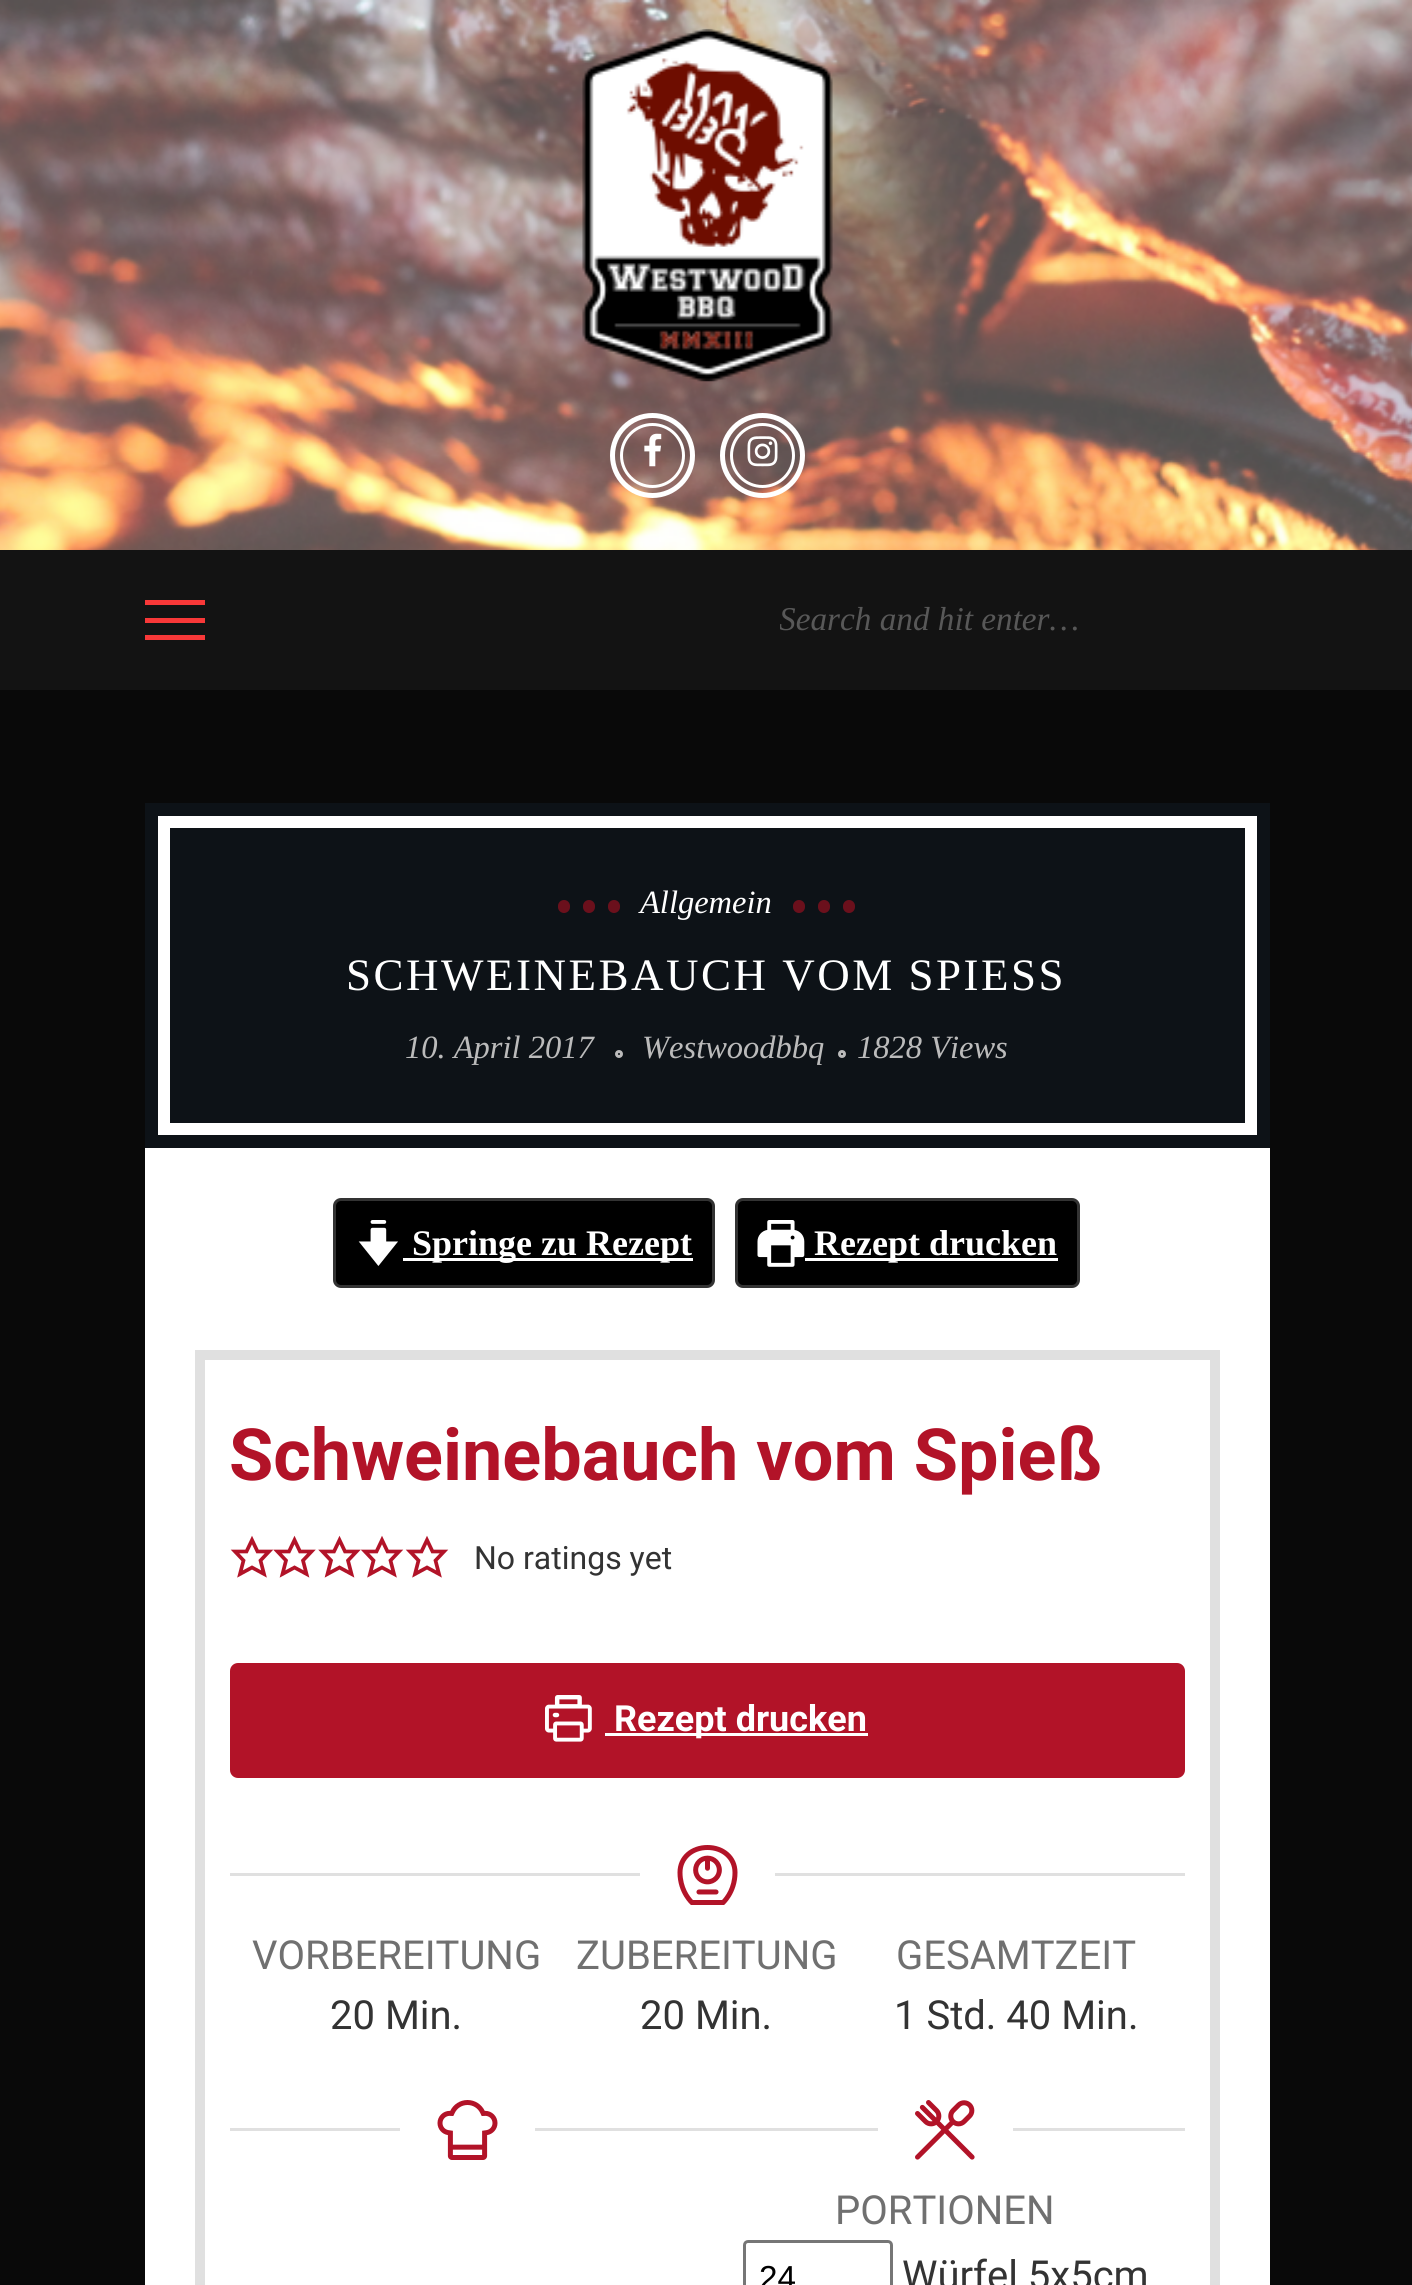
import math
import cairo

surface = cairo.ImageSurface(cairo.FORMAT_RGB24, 1412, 2285)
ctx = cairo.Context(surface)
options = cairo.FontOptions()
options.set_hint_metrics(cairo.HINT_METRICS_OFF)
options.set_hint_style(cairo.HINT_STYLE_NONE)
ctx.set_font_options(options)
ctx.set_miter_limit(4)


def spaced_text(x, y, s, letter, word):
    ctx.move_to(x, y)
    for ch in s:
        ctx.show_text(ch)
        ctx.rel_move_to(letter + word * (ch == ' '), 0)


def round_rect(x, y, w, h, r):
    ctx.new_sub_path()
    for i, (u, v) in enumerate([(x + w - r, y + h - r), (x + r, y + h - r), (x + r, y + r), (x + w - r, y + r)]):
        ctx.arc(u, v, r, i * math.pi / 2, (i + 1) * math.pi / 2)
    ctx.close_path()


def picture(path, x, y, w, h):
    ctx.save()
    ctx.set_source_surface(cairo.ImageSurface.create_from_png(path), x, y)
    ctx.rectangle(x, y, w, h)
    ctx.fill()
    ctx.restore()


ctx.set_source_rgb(0.039, 0.039, 0.039)
ctx.paint()
ctx.set_source_rgb(1, 1, 1)
ctx.rectangle(0, 0, 1412, 550)
ctx.fill()
picture("img1.png", 0, 0, 1412, 550)
picture("img2.png", 582, 28, 251, 354)
ctx.arc(652.5, 455.5, 40, 0, 2 * math.pi)
ctx.set_line_width(5)
ctx.stroke()
picture("img3.png", 644, 433, 18, 34)
ctx.arc(652.5, 455.5, 31, 0, 2 * math.pi)
ctx.set_line_width(3)
ctx.stroke()
ctx.arc(762.5, 455.5, 40, 0, 2 * math.pi)
ctx.set_line_width(5)
ctx.stroke()
picture("img4.png", 747, 436, 31, 31)
ctx.arc(762.5, 455.5, 31, 0, 2 * math.pi)
ctx.set_line_width(3)
ctx.stroke()
ctx.set_source_rgb(0.078, 0.078, 0.078)
ctx.rectangle(0, 550, 1412, 140)
ctx.fill()
ctx.set_source_rgb(0.969, 0.22, 0.22)
ctx.rectangle(145, 618, 60, 5)
ctx.fill()
ctx.rectangle(145, 600, 60, 5)
ctx.fill()
ctx.rectangle(145, 635, 60, 5)
ctx.fill()
ctx.save()
ctx.rectangle(780, 600, 400, 40)
ctx.clip()
ctx.select_font_face("Liberation Serif", cairo.FONT_SLANT_ITALIC)
ctx.set_font_size(33.25)
ctx.set_source_rgb(0.345, 0.345, 0.345)
ctx.move_to(779, 630)
ctx.show_text("Search and hit enter…")
ctx.restore()
ctx.set_source_rgb(1, 1, 1)
ctx.rectangle(145, 816, 1125, 1469)
ctx.fill()
ctx.set_source_rgb(0.051, 0.071, 0.09)
ctx.rectangle(170, 828, 1075, 295)
ctx.fill()
ctx.set_source_rgb(0.42, 0.063, 0.11)
round_rect(583, 900, 12, 13, 6)
ctx.fill()
round_rect(558, 900, 12, 13, 6)
ctx.fill()
round_rect(608, 900, 12, 13, 6)
ctx.fill()
round_rect(818, 900, 12, 13, 6)
ctx.fill()
round_rect(793, 900, 12, 13, 6)
ctx.fill()
round_rect(843, 900, 12, 13, 6)
ctx.fill()
ctx.arc(619, 1054, 2.5, 0, 2 * math.pi)
ctx.set_source_rgb(0.733, 0.733, 0.733)
ctx.stroke()
ctx.arc(842, 1054, 2.5, 0, 2 * math.pi)
ctx.stroke()
ctx.rectangle(151.5, 809.5, 1112, 332)
ctx.set_source_rgb(0.051, 0.071, 0.09)
ctx.set_line_width(13)
ctx.stroke()
ctx.select_font_face("Liberation Serif", cairo.FONT_SLANT_ITALIC)
ctx.set_font_size(32.5)
ctx.set_source_rgb(1, 1, 1)
ctx.move_to(640, 913)
ctx.show_text("Allgemein")
ctx.select_font_face("Liberation Serif")
ctx.set_font_size(45)
spaced_text(346, 990, "SCHWEINEBAUCH VOM SPIESS", 2.5, 0)
ctx.select_font_face("Liberation Serif", cairo.FONT_SLANT_ITALIC)
ctx.set_font_size(32.5)
ctx.set_source_rgb(0.733, 0.733, 0.733)
ctx.move_to(405, 1058)
ctx.show_text("10. April 2017")
ctx.move_to(642, 1058)
ctx.show_text("Westwoodbbq")
ctx.move_to(857, 1058)
ctx.show_text("1828 Views")
ctx.set_source_rgb(0, 0, 0)
round_rect(334.5, 1199.5, 379, 87, 6.5)
ctx.fill_preserve()
ctx.set_source_rgb(0.2, 0.2, 0.2)
ctx.set_line_width(3)
ctx.stroke()
picture("img5.png", 358, 1220, 40, 46)
ctx.set_source_rgb(1, 1, 1)
ctx.rectangle(403, 1258, 290, 3)
ctx.fill()
ctx.select_font_face("Liberation Serif", cairo.FONT_SLANT_NORMAL, cairo.FONT_WEIGHT_BOLD)
ctx.set_font_size(36)
ctx.move_to(412, 1255)
ctx.show_text("Springe zu Rezept")
ctx.set_source_rgb(0, 0, 0)
round_rect(736.5, 1199.5, 342, 87, 6.5)
ctx.fill_preserve()
ctx.set_source_rgb(0.2, 0.2, 0.2)
ctx.stroke()
picture("img6.png", 757, 1220, 48, 47)
ctx.set_source_rgb(1, 1, 1)
ctx.rectangle(805, 1258, 253, 3)
ctx.fill()
ctx.move_to(814, 1255)
ctx.show_text("Rezept drucken")
ctx.rectangle(200, 1355, 1015, 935)
ctx.set_source_rgb(0.878, 0.878, 0.878)
ctx.set_line_width(10)
ctx.stroke()
ctx.select_font_face("Roboto", cairo.FONT_SLANT_NORMAL, cairo.FONT_WEIGHT_BOLD)
ctx.set_font_size(72)
ctx.set_source_rgb(0.698, 0.075, 0.157)
ctx.move_to(229, 1480)
ctx.show_text("Schweinebauch vom Spieß")
ctx.new_path()
ctx.move_to(252, 1540)
ctx.line_to(257.5, 1551.5)
ctx.line_to(269, 1551.5)
ctx.line_to(260.5, 1560.5)
ctx.line_to(264, 1574)
ctx.line_to(252, 1567.5)
ctx.line_to(240, 1574)
ctx.line_to(243.5, 1560.5)
ctx.line_to(235, 1551.5)
ctx.line_to(246.5, 1551.5)
ctx.close_path()
ctx.set_line_width(3.7)
ctx.set_line_cap(cairo.LINE_CAP_SQUARE)
ctx.stroke()
ctx.new_path()
ctx.move_to(294.5, 1540)
ctx.line_to(300, 1551.5)
ctx.line_to(311.5, 1551.5)
ctx.line_to(303, 1560.5)
ctx.line_to(306.5, 1574)
ctx.line_to(294.5, 1567.5)
ctx.line_to(282.5, 1574)
ctx.line_to(286, 1560.5)
ctx.line_to(277.5, 1551.5)
ctx.line_to(289, 1551.5)
ctx.close_path()
ctx.stroke()
ctx.new_path()
ctx.move_to(339.5, 1540)
ctx.line_to(345, 1551.5)
ctx.line_to(356.5, 1551.5)
ctx.line_to(348, 1560.5)
ctx.line_to(351.5, 1574)
ctx.line_to(339.5, 1567.5)
ctx.line_to(327.5, 1574)
ctx.line_to(331, 1560.5)
ctx.line_to(322.5, 1551.5)
ctx.line_to(334, 1551.5)
ctx.close_path()
ctx.stroke()
ctx.new_path()
ctx.move_to(382, 1540)
ctx.line_to(387.5, 1551.5)
ctx.line_to(399, 1551.5)
ctx.line_to(390.5, 1560.5)
ctx.line_to(394, 1574)
ctx.line_to(382, 1567.5)
ctx.line_to(370, 1574)
ctx.line_to(373.5, 1560.5)
ctx.line_to(365, 1551.5)
ctx.line_to(376.5, 1551.5)
ctx.close_path()
ctx.stroke()
ctx.new_path()
ctx.move_to(427, 1540)
ctx.line_to(432.5, 1551.5)
ctx.line_to(444, 1551.5)
ctx.line_to(435.5, 1560.5)
ctx.line_to(439, 1574)
ctx.line_to(427, 1567.5)
ctx.line_to(415, 1574)
ctx.line_to(418.5, 1560.5)
ctx.line_to(410, 1551.5)
ctx.line_to(421.5, 1551.5)
ctx.close_path()
ctx.stroke()
ctx.select_font_face("Roboto")
ctx.set_font_size(32)
ctx.set_source_rgb(0.2, 0.2, 0.2)
ctx.move_to(474, 1569)
ctx.show_text("No ratings yet")
ctx.set_source_rgb(0.698, 0.075, 0.157)
round_rect(231.5, 1664.5, 952, 112, 6.5)
ctx.fill_preserve()
ctx.set_line_width(3)
ctx.set_line_cap(cairo.LINE_CAP_BUTT)
ctx.stroke()
picture("img7.png", 545, 1695, 47, 47)
ctx.set_source_rgb(1, 1, 1)
ctx.rectangle(605, 1733, 263, 3)
ctx.fill()
ctx.select_font_face("Roboto", cairo.FONT_SLANT_NORMAL, cairo.FONT_WEIGHT_BOLD)
ctx.set_font_size(36)
ctx.move_to(614, 1731)
ctx.show_text("Rezept drucken")
ctx.set_source_rgb(0.878, 0.878, 0.878)
ctx.rectangle(230, 1873, 410, 3)
ctx.fill()
picture("img8.png", 677, 1845, 61, 60)
ctx.rectangle(775, 1873, 410, 3)
ctx.fill()
ctx.select_font_face("Roboto")
ctx.set_font_size(40)
ctx.set_source_rgb(0.439, 0.439, 0.439)
ctx.move_to(252, 1969)
ctx.show_text("VORBEREITUNG")
ctx.set_source_rgb(0.2, 0.2, 0.2)
ctx.move_to(330, 2029)
ctx.show_text("20 Min.")
ctx.set_source_rgb(0.439, 0.439, 0.439)
ctx.move_to(576, 1969)
ctx.show_text("ZUBEREITUNG")
ctx.set_source_rgb(0.2, 0.2, 0.2)
ctx.move_to(640, 2029)
ctx.show_text("20 Min.")
ctx.set_source_rgb(0.439, 0.439, 0.439)
ctx.move_to(896, 1969)
ctx.show_text("GESAMTZEIT")
ctx.set_source_rgb(0.2, 0.2, 0.2)
ctx.move_to(894, 2029)
ctx.show_text("1 Std. 40 Min.")
ctx.set_source_rgb(0.878, 0.878, 0.878)
ctx.rectangle(230, 2128, 170, 3)
ctx.fill()
picture("img9.png", 437, 2100, 61, 60)
ctx.rectangle(535, 2128, 343, 3)
ctx.fill()
picture("img10.png", 915, 2100, 60, 60)
ctx.rectangle(1013, 2128, 172, 3)
ctx.fill()
ctx.set_source_rgb(0.439, 0.439, 0.439)
ctx.move_to(835, 2224)
ctx.show_text("PORTIONEN")
round_rect(744.5, 2241.5, 147, 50, 3.5)
ctx.set_source_rgb(0.463, 0.463, 0.463)
ctx.stroke()
ctx.select_font_face("Liberation Sans")
ctx.set_font_size(33.25)
ctx.set_source_rgb(0, 0, 0)
ctx.move_to(759, 2289)
ctx.show_text("24")
ctx.select_font_face("Roboto")
ctx.set_font_size(40)
ctx.set_source_rgb(0.2, 0.2, 0.2)
ctx.move_to(902, 2289)
ctx.show_text("Würfel 5x5cm")
surface.write_to_png("page.png")
